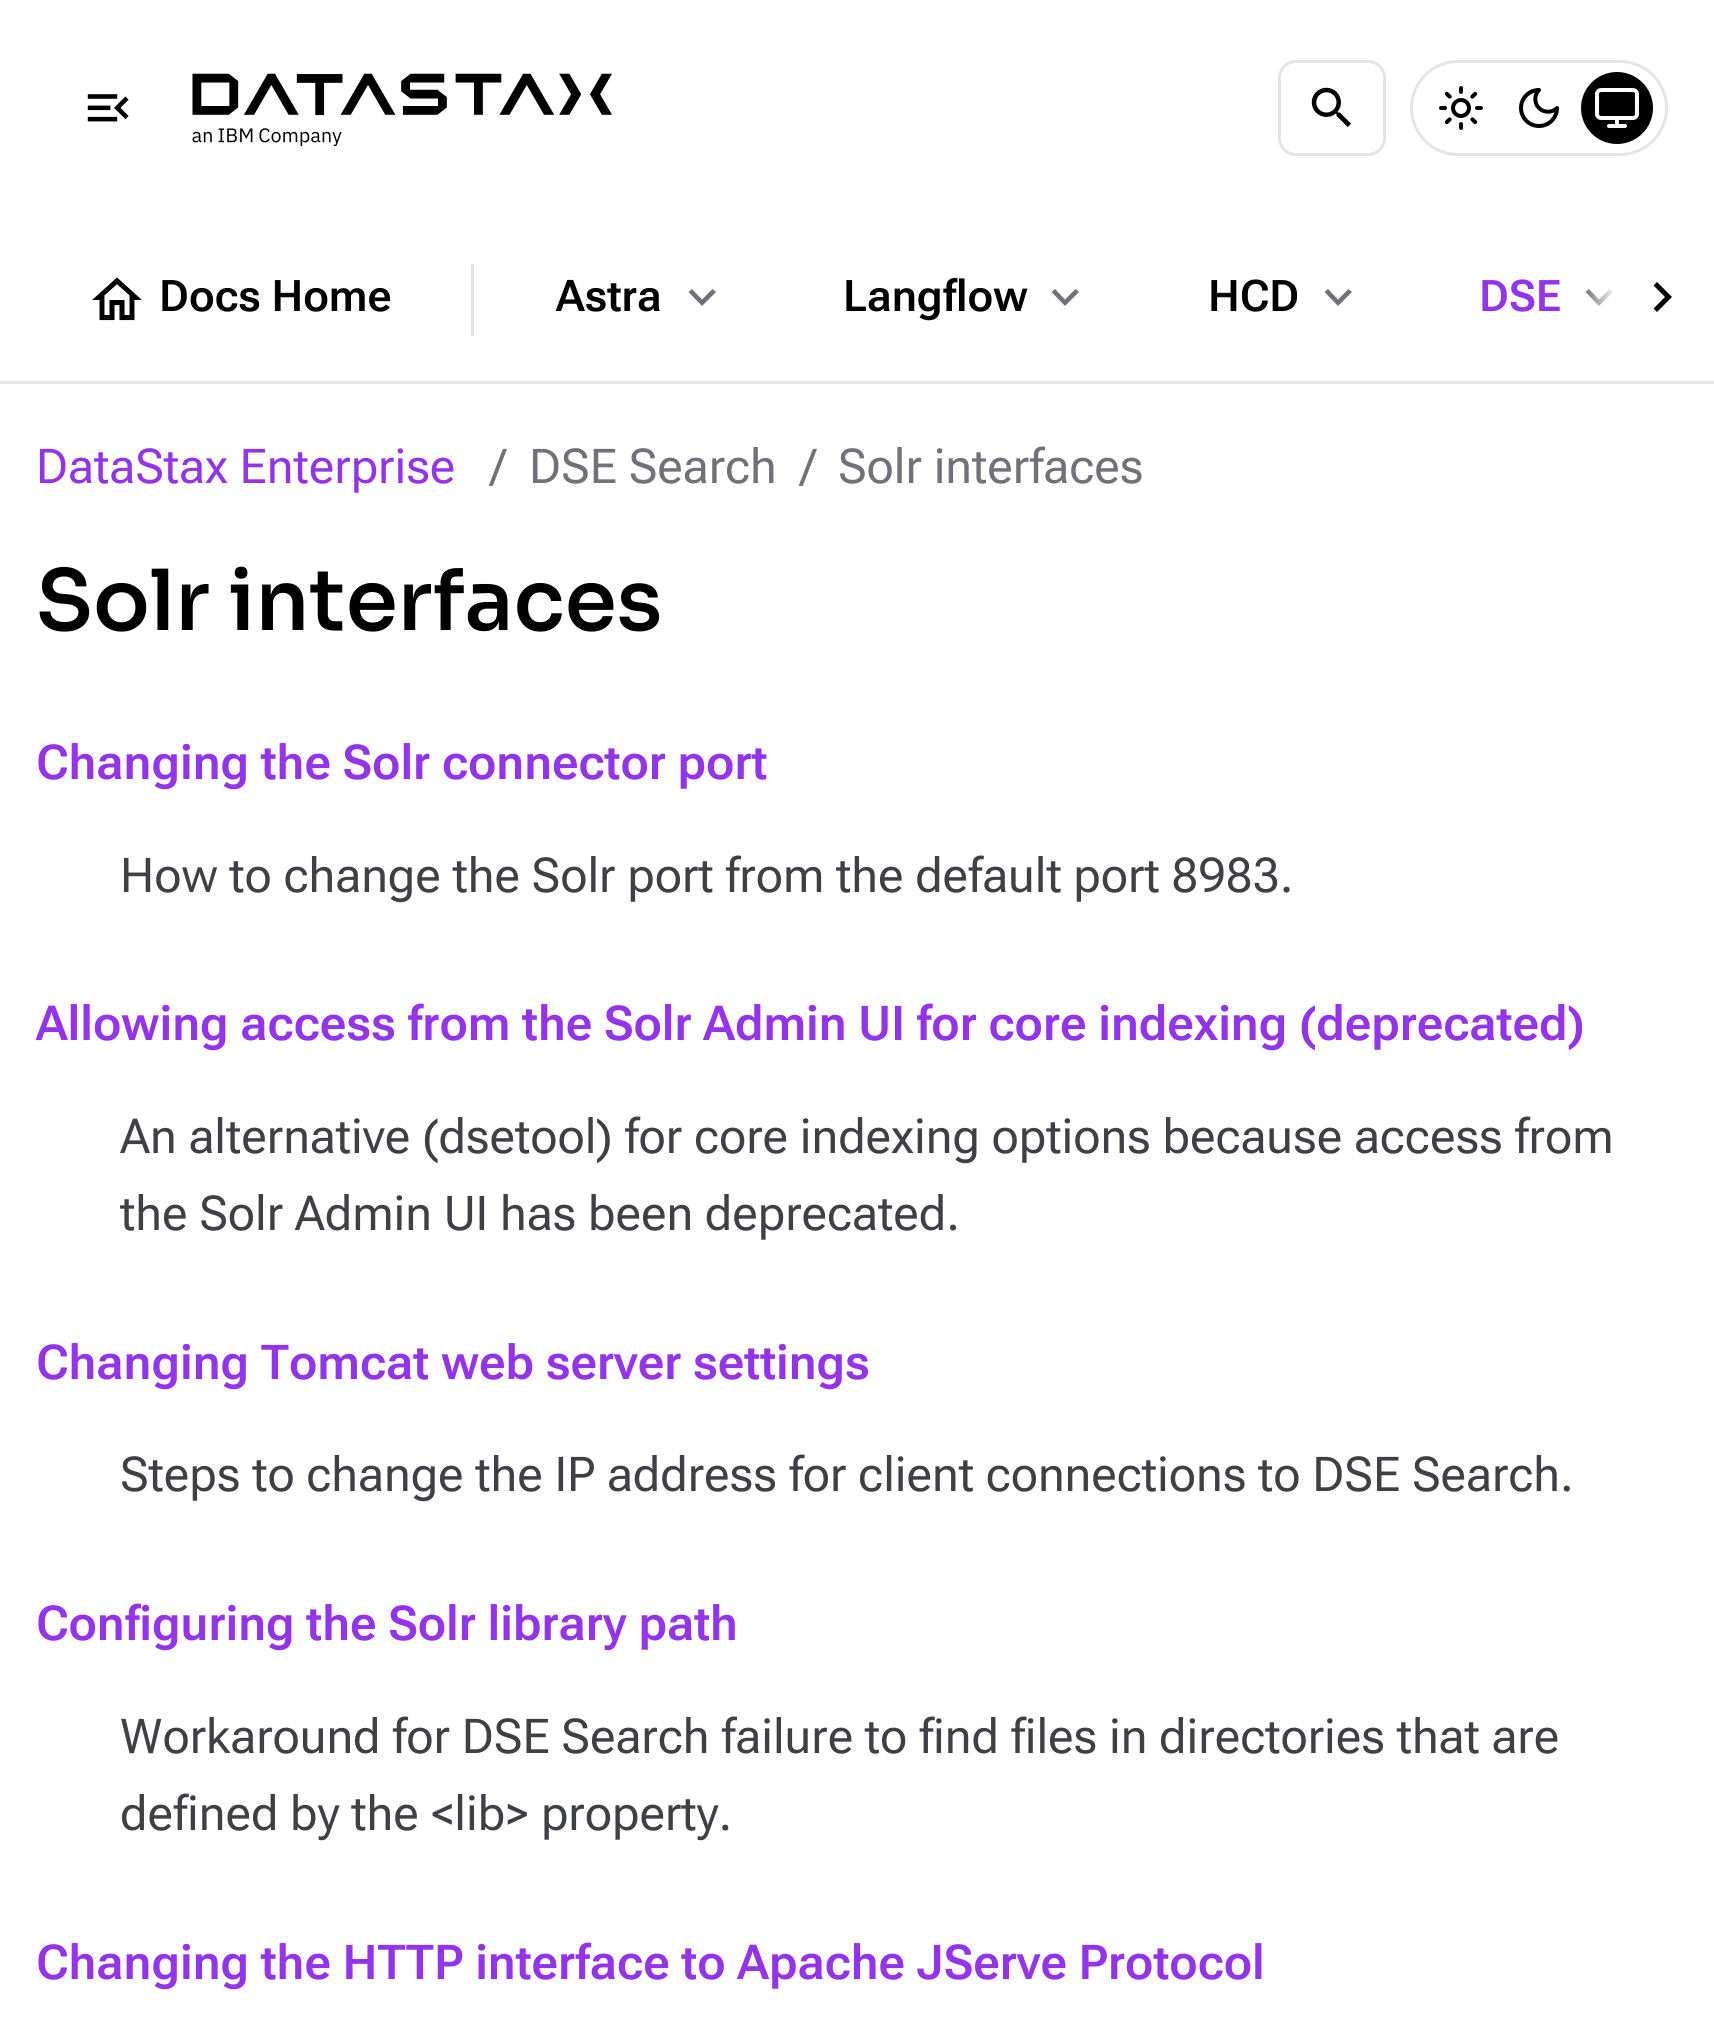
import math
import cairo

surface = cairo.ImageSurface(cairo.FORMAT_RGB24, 1714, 2020)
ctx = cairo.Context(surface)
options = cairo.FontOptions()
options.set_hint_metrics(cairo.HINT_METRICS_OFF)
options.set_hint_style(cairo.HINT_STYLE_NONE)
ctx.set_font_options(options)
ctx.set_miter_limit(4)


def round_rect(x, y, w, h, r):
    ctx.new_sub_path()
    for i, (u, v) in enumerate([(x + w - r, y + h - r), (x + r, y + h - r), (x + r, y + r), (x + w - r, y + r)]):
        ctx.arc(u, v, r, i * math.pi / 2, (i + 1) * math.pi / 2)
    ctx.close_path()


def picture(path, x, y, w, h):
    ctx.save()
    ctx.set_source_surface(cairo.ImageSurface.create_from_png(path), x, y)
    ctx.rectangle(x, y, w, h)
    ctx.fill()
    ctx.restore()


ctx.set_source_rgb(1, 1, 1)
ctx.paint()
ctx.set_source_rgb(0.894, 0.894, 0.906)
ctx.rectangle(0, 381, 1714, 3)
ctx.fill()
picture("img1.png", 87, 94, 42, 28)
picture("img2.png", 192, 73, 420, 74)
round_rect(1279.5, 61.5, 105, 93, 16.5)
ctx.set_line_width(3)
ctx.stroke()
picture("img3.png", 1311, 87, 40, 40)
round_rect(1411.5, 61.5, 255, 93, 46.5)
ctx.stroke()
picture("img4.png", 1439, 86, 44, 44)
picture("img5.png", 1519, 88, 40, 40)
ctx.set_source_rgb(0, 0, 0)
ctx.arc(1617, 108, 36, 0, 2 * math.pi)
ctx.fill()
picture("img6.png", 1594, 88, 46, 40)
picture("img7.png", 92, 277, 50, 44)
ctx.select_font_face("Roboto Flex SemiBold")
ctx.set_font_size(43.5)
ctx.move_to(159, 311)
ctx.show_text("Docs Home")
ctx.set_source_rgb(0.894, 0.894, 0.906)
ctx.rectangle(471, 264, 3, 72)
ctx.fill()
ctx.set_source_rgb(0, 0, 0)
ctx.move_to(556, 311)
ctx.show_text("Astra")
ctx.set_source_rgb(0.443, 0.443, 0.478)
ctx.new_path()
ctx.move_to(712.5, 289)
ctx.line_to(702, 299.5)
ctx.line_to(692, 289)
ctx.line_to(688.5, 292)
ctx.line_to(702, 306)
ctx.line_to(716, 292)
ctx.close_path()
ctx.fill()
ctx.set_source_rgb(0, 0, 0)
ctx.move_to(843, 311)
ctx.show_text("Langflow")
ctx.set_source_rgb(0.443, 0.443, 0.478)
ctx.new_path()
ctx.move_to(1075.5, 289)
ctx.line_to(1065, 299.5)
ctx.line_to(1055, 289)
ctx.line_to(1051.5, 292)
ctx.line_to(1065, 306)
ctx.line_to(1079, 292)
ctx.close_path()
ctx.fill()
ctx.set_source_rgb(0, 0, 0)
ctx.move_to(1208, 311)
ctx.show_text("HCD")
ctx.set_source_rgb(0.443, 0.443, 0.478)
ctx.new_path()
ctx.move_to(1348.5, 289)
ctx.line_to(1338, 299.5)
ctx.line_to(1328, 289)
ctx.line_to(1324.5, 292)
ctx.line_to(1338, 306)
ctx.line_to(1352, 292)
ctx.close_path()
ctx.fill()
ctx.set_source_rgb(0.576, 0.2, 0.918)
ctx.move_to(1479, 311)
ctx.show_text("DSE")
ctx.set_source_rgb(0.443, 0.443, 0.478)
ctx.new_path()
ctx.move_to(1609.5, 289)
ctx.line_to(1599, 299.5)
ctx.line_to(1589, 289)
ctx.line_to(1585.5, 292)
ctx.line_to(1599, 306)
ctx.line_to(1613, 292)
ctx.close_path()
ctx.fill()
gradient = cairo.LinearGradient(1584, 300, 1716, 300)
gradient.add_color_stop_rgba(0, 1, 1, 1, 0)
gradient.add_color_stop_rgba(0.25, 1, 1, 1, 1)
gradient.add_color_stop_rgba(0.5, 1, 1, 1, 1)
ctx.set_source(gradient)
ctx.new_path()
ctx.move_to(1584, 228)
ctx.line_to(1698, 228)
ctx.curve_to(1708, 228, 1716, 236, 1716, 246)
ctx.line_to(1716, 372)
ctx.line_to(1584, 372)
ctx.close_path()
ctx.fill()
ctx.set_source_rgb(0, 0, 0)
ctx.new_path()
ctx.move_to(1657, 282)
ctx.line_to(1653.5, 285.5)
ctx.line_to(1665, 297)
ctx.line_to(1653.5, 308.5)
ctx.line_to(1657, 312)
ctx.line_to(1672, 297)
ctx.close_path()
ctx.fill()
ctx.select_font_face("Roboto Flex")
ctx.set_font_size(48)
ctx.set_source_rgb(0.576, 0.2, 0.918)
ctx.move_to(36, 483)
ctx.show_text("DataStax Enterprise")
ctx.set_source_rgb(0.443, 0.443, 0.478)
ctx.move_to(491, 483)
ctx.show_text("/")
ctx.move_to(529, 483)
ctx.show_text("DSE Search")
ctx.move_to(801, 483)
ctx.show_text("/")
ctx.move_to(838, 483)
ctx.show_text("Solr interfaces")
ctx.select_font_face("Sora Medium")
ctx.set_font_size(84)
ctx.set_source_rgb(0, 0, 0)
ctx.move_to(36, 630)
ctx.show_text("Solr interfaces")
ctx.select_font_face("Roboto Flex SemiBold")
ctx.set_font_size(48)
ctx.set_source_rgb(0.576, 0.2, 0.918)
ctx.move_to(36, 779)
ctx.show_text("Changing the Solr connector port")
ctx.select_font_face("Roboto Flex")
ctx.set_source_rgb(0.247, 0.247, 0.275)
ctx.move_to(120, 892)
ctx.show_text("How to change the Solr port from the default port 8983.")
ctx.select_font_face("Roboto Flex SemiBold")
ctx.set_source_rgb(0.576, 0.2, 0.918)
ctx.move_to(36, 1040)
ctx.show_text("Allowing access from the Solr Admin UI for core indexing (deprecated)")
ctx.select_font_face("Roboto Flex")
ctx.set_source_rgb(0.247, 0.247, 0.275)
ctx.move_to(120, 1153)
ctx.show_text("An alternative (dsetool) for core indexing options because access from")
ctx.move_to(120, 1230)
ctx.show_text("the Solr Admin UI has been deprecated.")
ctx.select_font_face("Roboto Flex SemiBold")
ctx.set_source_rgb(0.576, 0.2, 0.918)
ctx.move_to(36, 1379)
ctx.show_text("Changing Tomcat web server settings")
ctx.select_font_face("Roboto Flex")
ctx.set_source_rgb(0.247, 0.247, 0.275)
ctx.move_to(120, 1491)
ctx.show_text("Steps to change the IP address for client connections to DSE Search.")
ctx.select_font_face("Roboto Flex SemiBold")
ctx.set_source_rgb(0.576, 0.2, 0.918)
ctx.move_to(36, 1640)
ctx.show_text("Configuring the Solr library path")
ctx.select_font_face("Roboto Flex")
ctx.set_source_rgb(0.247, 0.247, 0.275)
ctx.move_to(120, 1753)
ctx.show_text("Workaround for DSE Search failure to find files in directories that are")
ctx.move_to(120, 1830)
ctx.show_text("defined by the <lib> property.")
ctx.select_font_face("Roboto Flex SemiBold")
ctx.set_source_rgb(0.576, 0.2, 0.918)
ctx.move_to(36, 1979)
ctx.show_text("Changing the HTTP interface to Apache JServe Protocol")
surface.write_to_png("page.png")
